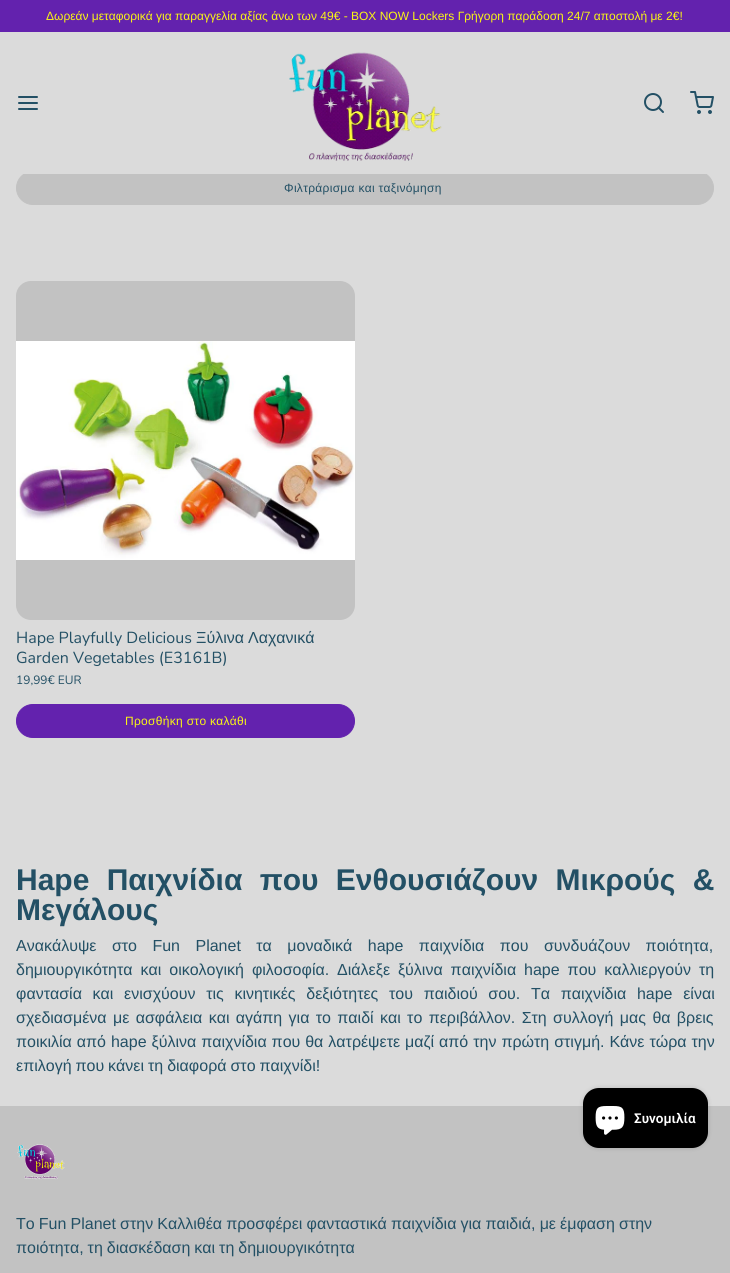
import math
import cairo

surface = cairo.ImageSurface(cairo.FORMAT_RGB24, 730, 1273)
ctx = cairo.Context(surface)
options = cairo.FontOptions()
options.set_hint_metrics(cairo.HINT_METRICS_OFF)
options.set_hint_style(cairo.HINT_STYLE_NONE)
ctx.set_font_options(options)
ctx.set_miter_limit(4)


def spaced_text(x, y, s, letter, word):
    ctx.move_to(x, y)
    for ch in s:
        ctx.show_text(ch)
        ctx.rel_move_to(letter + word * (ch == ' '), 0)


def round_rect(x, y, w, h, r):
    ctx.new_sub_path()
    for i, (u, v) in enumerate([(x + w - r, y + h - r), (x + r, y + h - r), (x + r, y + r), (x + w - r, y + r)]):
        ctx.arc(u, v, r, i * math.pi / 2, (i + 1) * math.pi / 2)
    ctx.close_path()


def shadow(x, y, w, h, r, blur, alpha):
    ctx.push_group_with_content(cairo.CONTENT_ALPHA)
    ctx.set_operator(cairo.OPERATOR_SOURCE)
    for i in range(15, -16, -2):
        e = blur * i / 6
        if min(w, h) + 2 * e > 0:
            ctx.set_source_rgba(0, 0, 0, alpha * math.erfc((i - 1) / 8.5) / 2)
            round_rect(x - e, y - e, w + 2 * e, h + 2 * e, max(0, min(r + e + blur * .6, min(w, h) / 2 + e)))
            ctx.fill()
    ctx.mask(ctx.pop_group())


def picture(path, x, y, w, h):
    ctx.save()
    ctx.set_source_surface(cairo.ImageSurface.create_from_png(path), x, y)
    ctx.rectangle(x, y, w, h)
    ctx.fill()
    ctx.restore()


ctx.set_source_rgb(0.859, 0.859, 0.859)
ctx.paint()
ctx.set_source_rgb(0.388, 0.133, 0.682)
ctx.rectangle(0, 0, 730, 32)
ctx.fill()
ctx.select_font_face("Liberation Sans")
ctx.set_font_size(12)
ctx.set_source_rgb(0.976, 0.961, 0.082)
ctx.move_to(46, 20)
ctx.show_text("Δωρεάν μεταφορικά για παραγγελία αξίας άνω των 49€ - BOX NOW Lockers Γρήγορη παράδοση 24/7 αποστολή με 2€!")
ctx.set_source_rgb(0.761, 0.761, 0.761)
round_rect(16.5, 171.5, 697, 33, 16.5)
ctx.fill_preserve()
ctx.set_line_width(1)
ctx.stroke()
ctx.set_source_rgb(0.859, 0.859, 0.859)
ctx.rectangle(23, 171, 684, 3)
ctx.fill()
ctx.new_path()
ctx.move_to(19, 103)
ctx.line_to(37, 103)
ctx.move_to(19, 97)
ctx.line_to(37, 97)
ctx.move_to(19, 109)
ctx.line_to(37, 109)
ctx.set_source_rgb(0.137, 0.314, 0.396)
ctx.set_line_width(2)
ctx.set_line_cap(cairo.LINE_CAP_ROUND)
ctx.set_line_join(cairo.LINE_JOIN_ROUND)
ctx.stroke()
picture("img1.png", 289, 52, 153, 109)
ctx.arc(653, 102, 8, 0, 2 * math.pi)
ctx.set_line_cap(cairo.LINE_CAP_BUTT)
ctx.set_line_join(cairo.LINE_JOIN_MITER)
ctx.stroke()
ctx.new_path()
ctx.move_to(663, 112)
ctx.line_to(658.5, 107.5)
ctx.set_line_cap(cairo.LINE_CAP_ROUND)
ctx.set_line_join(cairo.LINE_JOIN_ROUND)
ctx.stroke()
picture("img2.png", 690, 91, 24, 23)
spaced_text(284, 192, "Φιλτράρισμα και ταξινόμηση", 0.3, 0)
ctx.set_source_rgb(0.761, 0.761, 0.761)
round_rect(16, 281, 339, 339, 15)
ctx.fill()
picture("img3.png", 16, 341, 339, 219)
ctx.select_font_face("Nunito")
ctx.set_font_size(16)
ctx.set_source_rgb(0.137, 0.314, 0.396)
ctx.move_to(16, 643)
ctx.show_text("Hape Playfully Delicious")
ctx.select_font_face("Liberation Sans")
ctx.move_to(196, 643)
ctx.show_text("Ξύλινα")
ctx.move_to(248, 643)
ctx.show_text("Λαχανικά")
ctx.select_font_face("Nunito")
ctx.move_to(16, 663)
ctx.show_text("Garden Vegetables (E3161B)")
ctx.set_font_size(12)
ctx.move_to(16, 684)
ctx.show_text("19,99€ EUR")
ctx.set_source_rgb(0.388, 0.133, 0.682)
round_rect(16.5, 704.5, 338, 33, 16.5)
ctx.fill_preserve()
ctx.set_line_width(1)
ctx.set_line_cap(cairo.LINE_CAP_BUTT)
ctx.set_line_join(cairo.LINE_JOIN_MITER)
ctx.stroke()
ctx.select_font_face("Liberation Sans")
ctx.set_source_rgb(0.976, 0.961, 0.082)
spaced_text(125, 725, "Προσθήκη στο καλάθι", 0.3, 0)
ctx.select_font_face("Liberation Sans", cairo.FONT_SLANT_NORMAL, cairo.FONT_WEIGHT_BOLD)
ctx.set_font_size(30)
ctx.set_source_rgb(0.137, 0.314, 0.396)
spaced_text(16, 890, "Hape Παιχνίδια που Ενθουσιάζουν Μικρούς &", 0, 9)
ctx.move_to(16, 920)
ctx.show_text("Μεγάλους")
ctx.select_font_face("Liberation Sans")
ctx.set_font_size(16)
spaced_text(16, 951, "Ανακάλυψε στο Fun Planet τα μοναδικά hape παιχνίδια που συνδυάζουν ποιότητα,", 0, 11)
spaced_text(16, 975, "δημιουργικότητα και οικολογική φιλοσοφία. Διάλεξε ξύλινα παιχνίδια hape που καλλιεργούν τη", 0, 3.5)
spaced_text(16, 999, "φαντασία και ενισχύουν τις κινητικές δεξιότητες του παιδιού σου. Τα παιχνίδια hape είναι", 0, 6.25)
spaced_text(16, 1023, "σχεδιασμένα με ασφάλεια και αγάπη για το παιδί και το περιβάλλον. Στη συλλογή μας θα βρεις", 0, 1.9)
spaced_text(16, 1047, "ποικιλία από hape ξύλινα παιχνίδια που θα λατρέψετε μαζί από την πρώτη στιγμή. Κάνε τώρα την", 0, 0.5)
spaced_text(16, 1071, "επιλογή που κάνει τη διαφορά στο παιχνίδι!", 0, -0.5)
ctx.set_source_rgb(0.761, 0.761, 0.761)
ctx.rectangle(0, 1106, 730, 167)
ctx.fill()
ctx.set_source_rgb(0, 0, 0)
shadow(583, 1088, 125, 60, 16, 2.5, 0.15)
ctx.set_source_rgb(0, 0, 0)
round_rect(583, 1088, 125, 60, 16)
ctx.fill()
picture("img4.png", 595, 1106, 30, 29)
ctx.select_font_face("Roboto SemiBold")
ctx.set_font_size(13.5)
ctx.set_source_rgb(1, 1, 1)
ctx.move_to(634, 1123)
ctx.show_text("Συνομιλία")
picture("img5.png", 17, 1144, 48, 36)
ctx.select_font_face("Liberation Sans")
ctx.set_font_size(16)
ctx.set_source_rgb(0.137, 0.314, 0.396)
spaced_text(16, 1229, "Το Fun Planet στην Καλλιθέα προσφέρει φανταστικά παιχνίδια για παιδιά, με έμφαση στην", 0, -0.3)
spaced_text(16, 1253, "ποιότητα, τη διασκέδαση και τη δημιουργικότητα", 0, -0.5)
surface.write_to_png("page.png")
